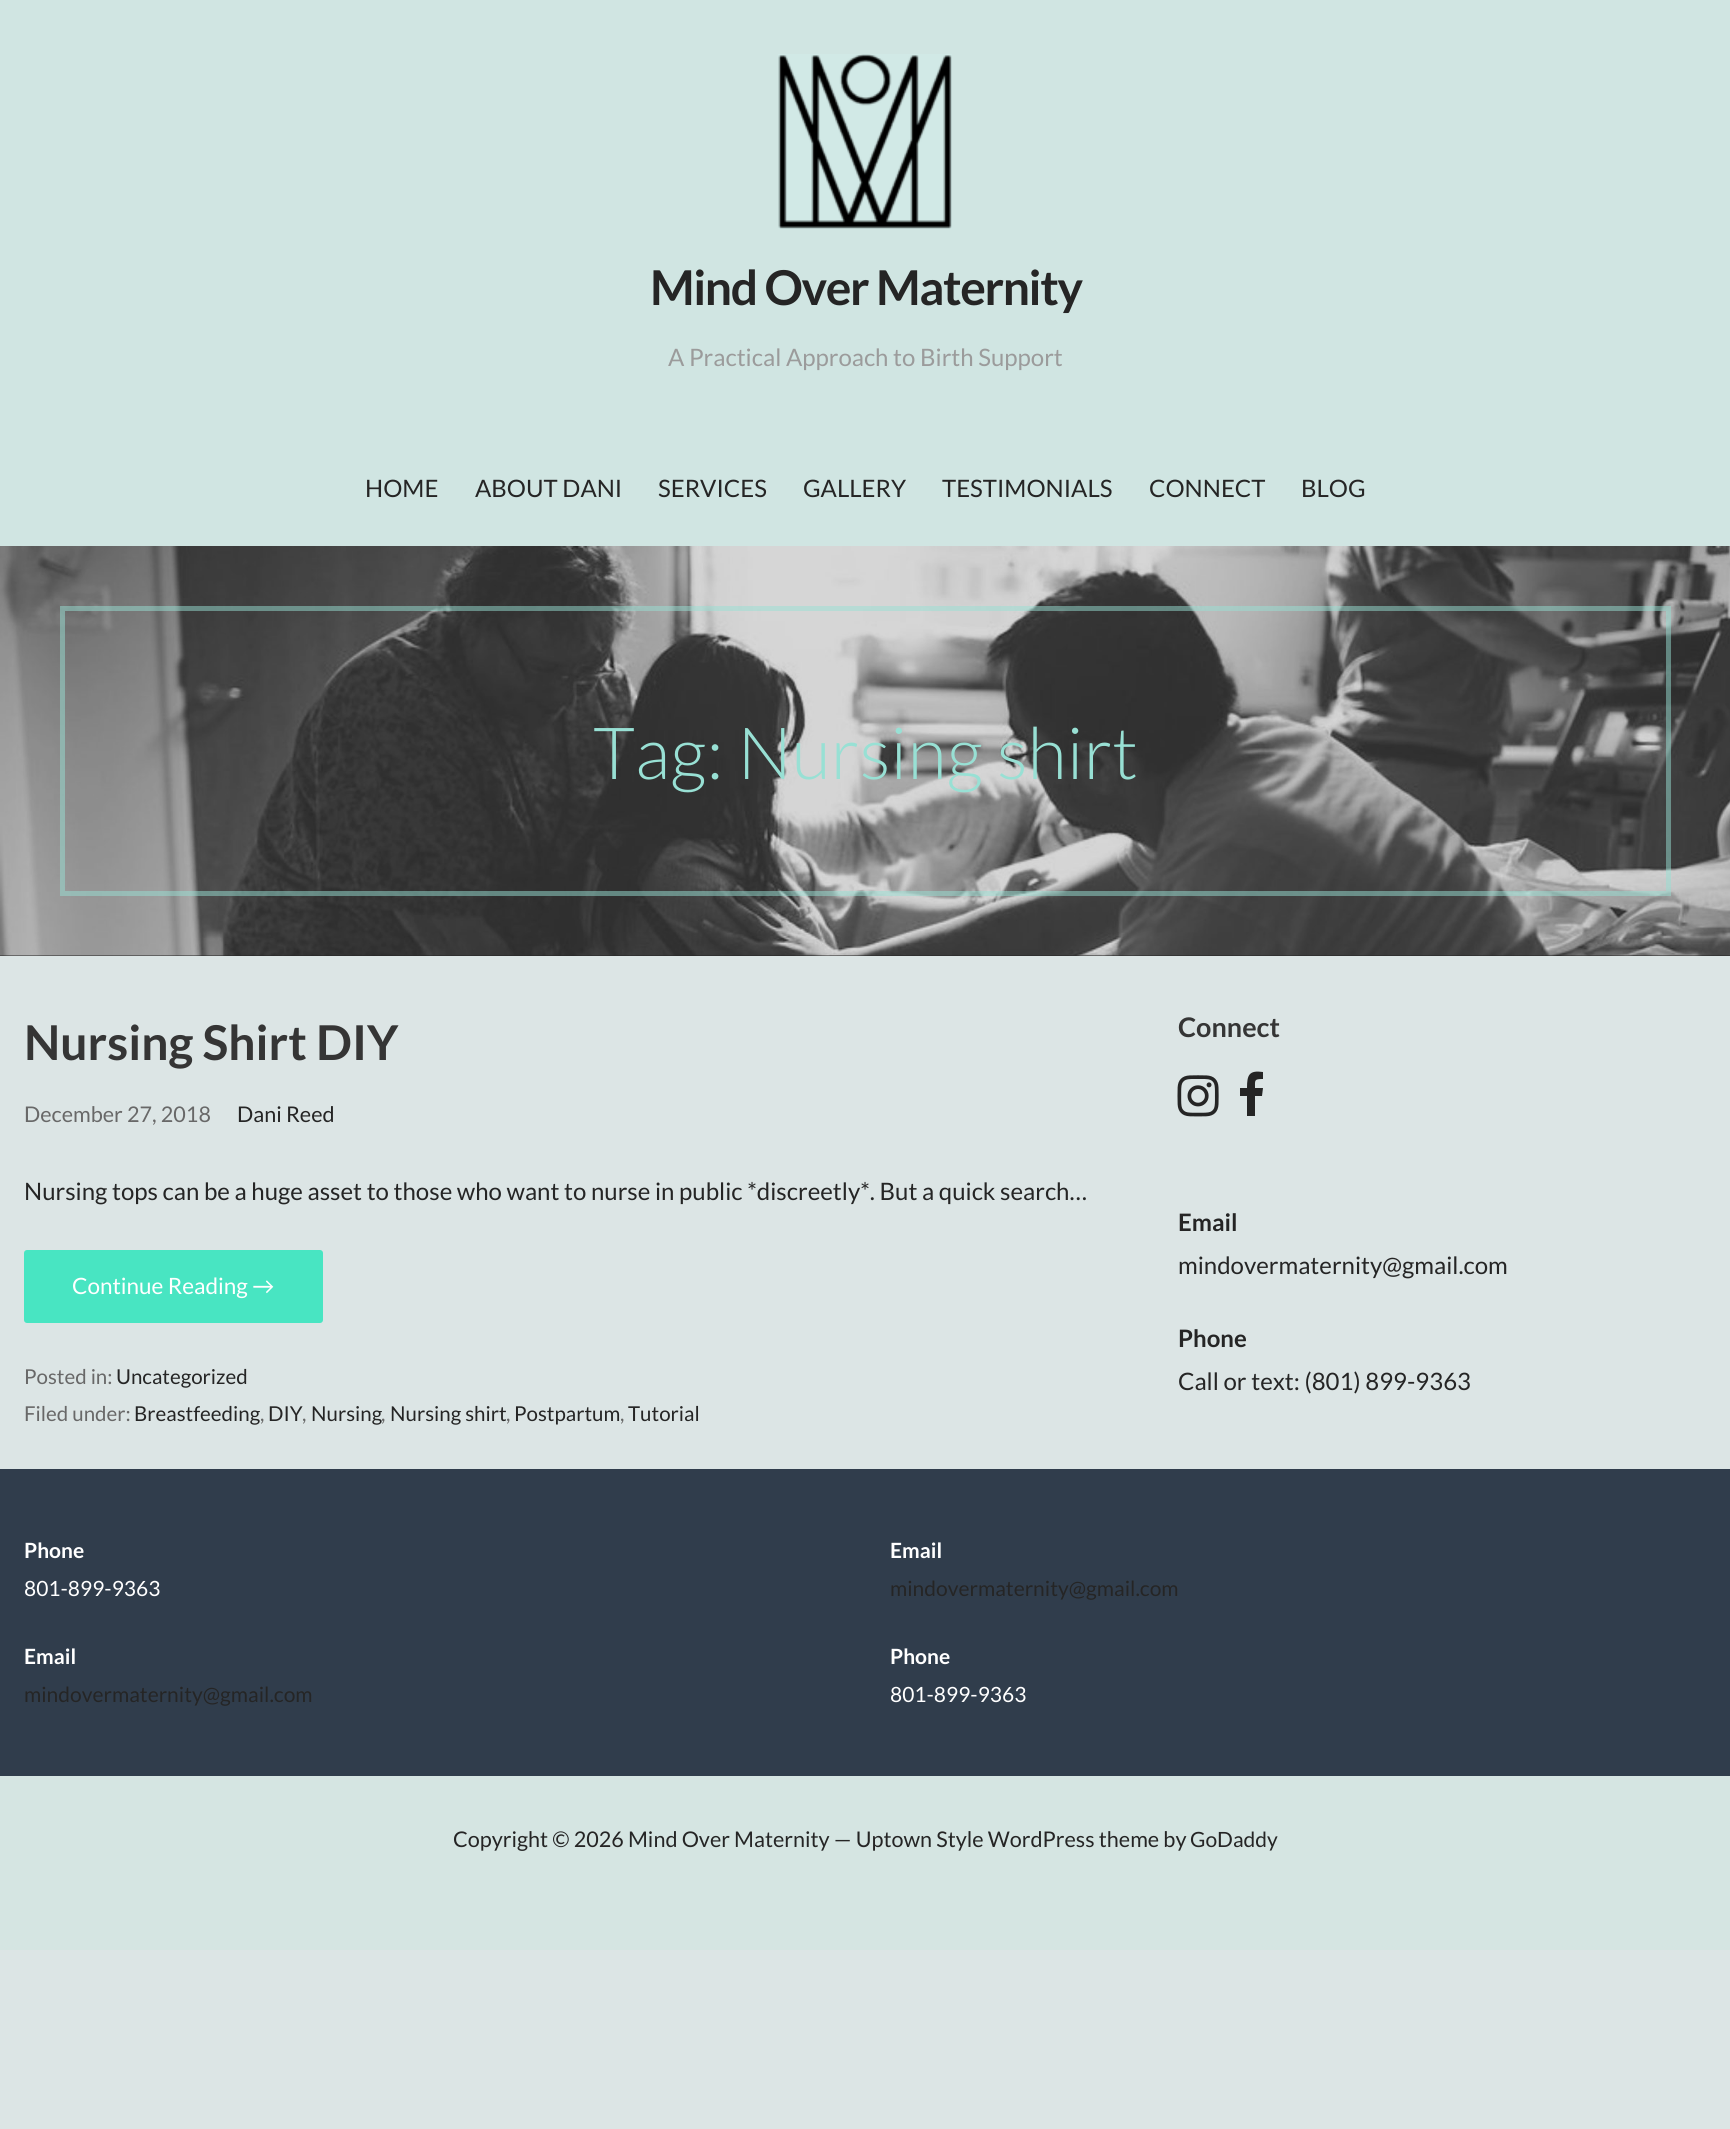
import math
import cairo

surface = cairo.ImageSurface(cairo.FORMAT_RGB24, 1730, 2129)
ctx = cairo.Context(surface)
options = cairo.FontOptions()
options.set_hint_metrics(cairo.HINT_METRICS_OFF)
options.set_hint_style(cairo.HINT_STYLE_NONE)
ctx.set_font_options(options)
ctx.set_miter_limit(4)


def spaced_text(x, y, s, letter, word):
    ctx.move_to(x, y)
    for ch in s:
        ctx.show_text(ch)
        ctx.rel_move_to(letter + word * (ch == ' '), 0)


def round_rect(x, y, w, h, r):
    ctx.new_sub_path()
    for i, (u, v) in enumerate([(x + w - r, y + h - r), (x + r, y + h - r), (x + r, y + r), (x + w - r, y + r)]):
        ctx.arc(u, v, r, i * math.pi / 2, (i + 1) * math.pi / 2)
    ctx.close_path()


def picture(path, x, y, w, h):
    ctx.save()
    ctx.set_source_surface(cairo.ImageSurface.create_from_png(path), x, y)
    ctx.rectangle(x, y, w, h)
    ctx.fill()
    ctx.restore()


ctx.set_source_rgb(0.863, 0.898, 0.898)
ctx.paint()
ctx.set_source_rgb(0.816, 0.898, 0.886)
ctx.rectangle(0, 0, 1730, 546)
ctx.fill()
picture("img1.png", 778, 54, 174, 175)
ctx.select_font_face("Lato", cairo.FONT_SLANT_NORMAL, cairo.FONT_WEIGHT_BOLD)
ctx.set_font_size(48)
ctx.set_source_rgb(0.145, 0.145, 0.145)
spaced_text(650, 305, "Mind Over Maternity", -1.4, 0)
ctx.select_font_face("Lato")
ctx.set_font_size(24)
ctx.set_source_rgb(0.608, 0.608, 0.608)
ctx.move_to(668, 366)
ctx.show_text("A Practical Approach to Birth Support")
ctx.set_source_rgb(0.145, 0.145, 0.145)
ctx.move_to(365, 497)
ctx.show_text("HOME")
ctx.move_to(475, 497)
ctx.show_text("ABOUT DANI")
ctx.move_to(658, 497)
ctx.show_text("SERVICES")
ctx.move_to(803, 497)
ctx.show_text("GALLERY")
ctx.move_to(942, 497)
ctx.show_text("TESTIMONIALS")
ctx.move_to(1149, 497)
ctx.show_text("CONNECT")
ctx.move_to(1301, 497)
ctx.show_text("BLOG")
ctx.rectangle(0, 955, 1730, 1)
ctx.fill()
picture("img2.png", 0, 546, 1730, 410)
ctx.rectangle(62.5, 608.5, 1606, 285)
ctx.set_source_rgba(0.596, 0.878, 0.831, 0.5)
ctx.set_line_width(5)
ctx.stroke()
ctx.select_font_face("Lato Light")
ctx.set_font_size(72)
ctx.set_source_rgb(0.596, 0.878, 0.831)
ctx.move_to(593, 779)
ctx.show_text("Tag: Nursing shirt")
ctx.select_font_face("Lato", cairo.FONT_SLANT_NORMAL, cairo.FONT_WEIGHT_BOLD)
ctx.set_font_size(48)
ctx.set_source_rgb(0.208, 0.208, 0.208)
ctx.move_to(24, 1060)
ctx.show_text("Nursing Shirt DIY")
ctx.select_font_face("Lato")
ctx.set_font_size(21.6)
ctx.set_source_rgb(0.408, 0.408, 0.408)
ctx.move_to(24, 1122)
ctx.show_text("December 27, 2018")
ctx.set_source_rgb(0.145, 0.145, 0.145)
ctx.move_to(237, 1122)
ctx.show_text("Dani Reed")
ctx.set_font_size(24)
ctx.move_to(24, 1200)
ctx.show_text("Nursing tops can be a huge asset to those who want to nurse in public *discreetly*. But a quick search…")
ctx.set_source_rgb(0.282, 0.898, 0.761)
round_rect(24, 1250, 299, 73, 3)
ctx.fill()
ctx.set_font_size(22.5)
ctx.set_source_rgb(1, 1, 1)
ctx.move_to(72, 1294)
ctx.show_text("Continue Reading")
ctx.select_font_face("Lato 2")
ctx.move_to(252, 1294)
ctx.show_text("→")
ctx.select_font_face("Lato")
ctx.set_font_size(20.5)
ctx.set_source_rgb(0.408, 0.408, 0.408)
ctx.move_to(24, 1384)
ctx.show_text("Posted in:")
ctx.set_source_rgb(0.145, 0.145, 0.145)
ctx.move_to(116, 1384)
ctx.show_text("Uncategorized")
ctx.set_source_rgb(0.408, 0.408, 0.408)
ctx.move_to(24, 1421)
ctx.show_text("Filed under:")
ctx.set_source_rgb(0.145, 0.145, 0.145)
ctx.move_to(134, 1421)
ctx.show_text("Breastfeeding")
ctx.set_source_rgb(0.408, 0.408, 0.408)
ctx.move_to(260, 1421)
ctx.show_text(",")
ctx.set_source_rgb(0.145, 0.145, 0.145)
ctx.move_to(268, 1421)
ctx.show_text("DIY")
ctx.set_source_rgb(0.408, 0.408, 0.408)
ctx.move_to(302, 1421)
ctx.show_text(",")
ctx.set_source_rgb(0.145, 0.145, 0.145)
ctx.move_to(311, 1421)
ctx.show_text("Nursing")
ctx.set_source_rgb(0.408, 0.408, 0.408)
ctx.move_to(381, 1421)
ctx.show_text(",")
ctx.set_source_rgb(0.145, 0.145, 0.145)
ctx.move_to(390, 1421)
ctx.show_text("Nursing shirt")
ctx.set_source_rgb(0.408, 0.408, 0.408)
ctx.move_to(506, 1421)
ctx.show_text(",")
ctx.set_source_rgb(0.145, 0.145, 0.145)
ctx.move_to(514, 1421)
ctx.show_text("Postpartum")
ctx.set_source_rgb(0.408, 0.408, 0.408)
ctx.move_to(620, 1421)
ctx.show_text(",")
ctx.set_source_rgb(0.145, 0.145, 0.145)
ctx.move_to(628, 1421)
ctx.show_text("Tutorial")
ctx.select_font_face("Lato", cairo.FONT_SLANT_NORMAL, cairo.FONT_WEIGHT_BOLD)
ctx.set_font_size(27)
ctx.set_source_rgb(0.208, 0.208, 0.208)
ctx.move_to(1178, 1037)
ctx.show_text("Connect")
picture("img3.png", 1177, 1075, 42, 42)
ctx.set_source_rgb(0.145, 0.145, 0.145)
ctx.new_path()
ctx.move_to(1263, 1072)
ctx.line_to(1263, 1079)
ctx.curve_to(1254, 1079, 1255, 1080, 1255, 1088)
ctx.line_to(1263, 1088)
ctx.line_to(1262, 1096)
ctx.line_to(1255, 1096)
ctx.line_to(1255, 1116)
ctx.line_to(1247, 1116)
ctx.line_to(1247, 1096)
ctx.line_to(1240, 1096)
ctx.line_to(1240, 1088)
ctx.line_to(1247, 1088)
ctx.curve_to(1247, 1075, 1249, 1070, 1263, 1072)
ctx.close_path()
ctx.fill()
ctx.set_font_size(24)
ctx.move_to(1178, 1231)
ctx.show_text("Email")
ctx.select_font_face("Lato")
ctx.move_to(1178, 1274)
ctx.show_text("mindovermaternity@gmail.com")
ctx.select_font_face("Lato", cairo.FONT_SLANT_NORMAL, cairo.FONT_WEIGHT_BOLD)
ctx.move_to(1178, 1347)
ctx.show_text("Phone")
ctx.select_font_face("Lato")
ctx.move_to(1178, 1390)
ctx.show_text("Call or text: (801) 899-9363")
ctx.set_source_rgb(0.188, 0.239, 0.298)
ctx.rectangle(0, 1469, 1730, 307)
ctx.fill()
ctx.select_font_face("Lato", cairo.FONT_SLANT_NORMAL, cairo.FONT_WEIGHT_BOLD)
ctx.set_font_size(21)
ctx.set_source_rgb(1, 1, 1)
ctx.move_to(24, 1558)
ctx.show_text("Phone")
ctx.select_font_face("Lato")
ctx.move_to(24, 1596)
ctx.show_text("801-899-9363")
ctx.select_font_face("Lato", cairo.FONT_SLANT_NORMAL, cairo.FONT_WEIGHT_BOLD)
ctx.move_to(24, 1664)
ctx.show_text("Email")
ctx.select_font_face("Lato")
ctx.set_source_rgb(0.145, 0.145, 0.145)
ctx.move_to(24, 1702)
ctx.show_text("mindovermaternity@gmail.com")
ctx.select_font_face("Lato", cairo.FONT_SLANT_NORMAL, cairo.FONT_WEIGHT_BOLD)
ctx.set_source_rgb(1, 1, 1)
ctx.move_to(890, 1558)
ctx.show_text("Email")
ctx.select_font_face("Lato")
ctx.set_source_rgb(0.145, 0.145, 0.145)
ctx.move_to(890, 1596)
ctx.show_text("mindovermaternity@gmail.com")
ctx.select_font_face("Lato", cairo.FONT_SLANT_NORMAL, cairo.FONT_WEIGHT_BOLD)
ctx.set_source_rgb(1, 1, 1)
ctx.move_to(890, 1664)
ctx.show_text("Phone")
ctx.select_font_face("Lato")
ctx.move_to(890, 1702)
ctx.show_text("801-899-9363")
ctx.set_source_rgb(0.835, 0.898, 0.886)
ctx.rectangle(0, 1776, 1730, 174)
ctx.fill()
ctx.set_font_size(21.6)
ctx.set_source_rgb(0.145, 0.145, 0.145)
ctx.move_to(453, 1847)
ctx.show_text("Copyright © 2026 Mind Over Maternity — Uptown Style WordPress theme by")
ctx.set_font_size(21)
ctx.move_to(1190, 1847)
ctx.show_text("GoDaddy")
surface.write_to_png("page.png")
